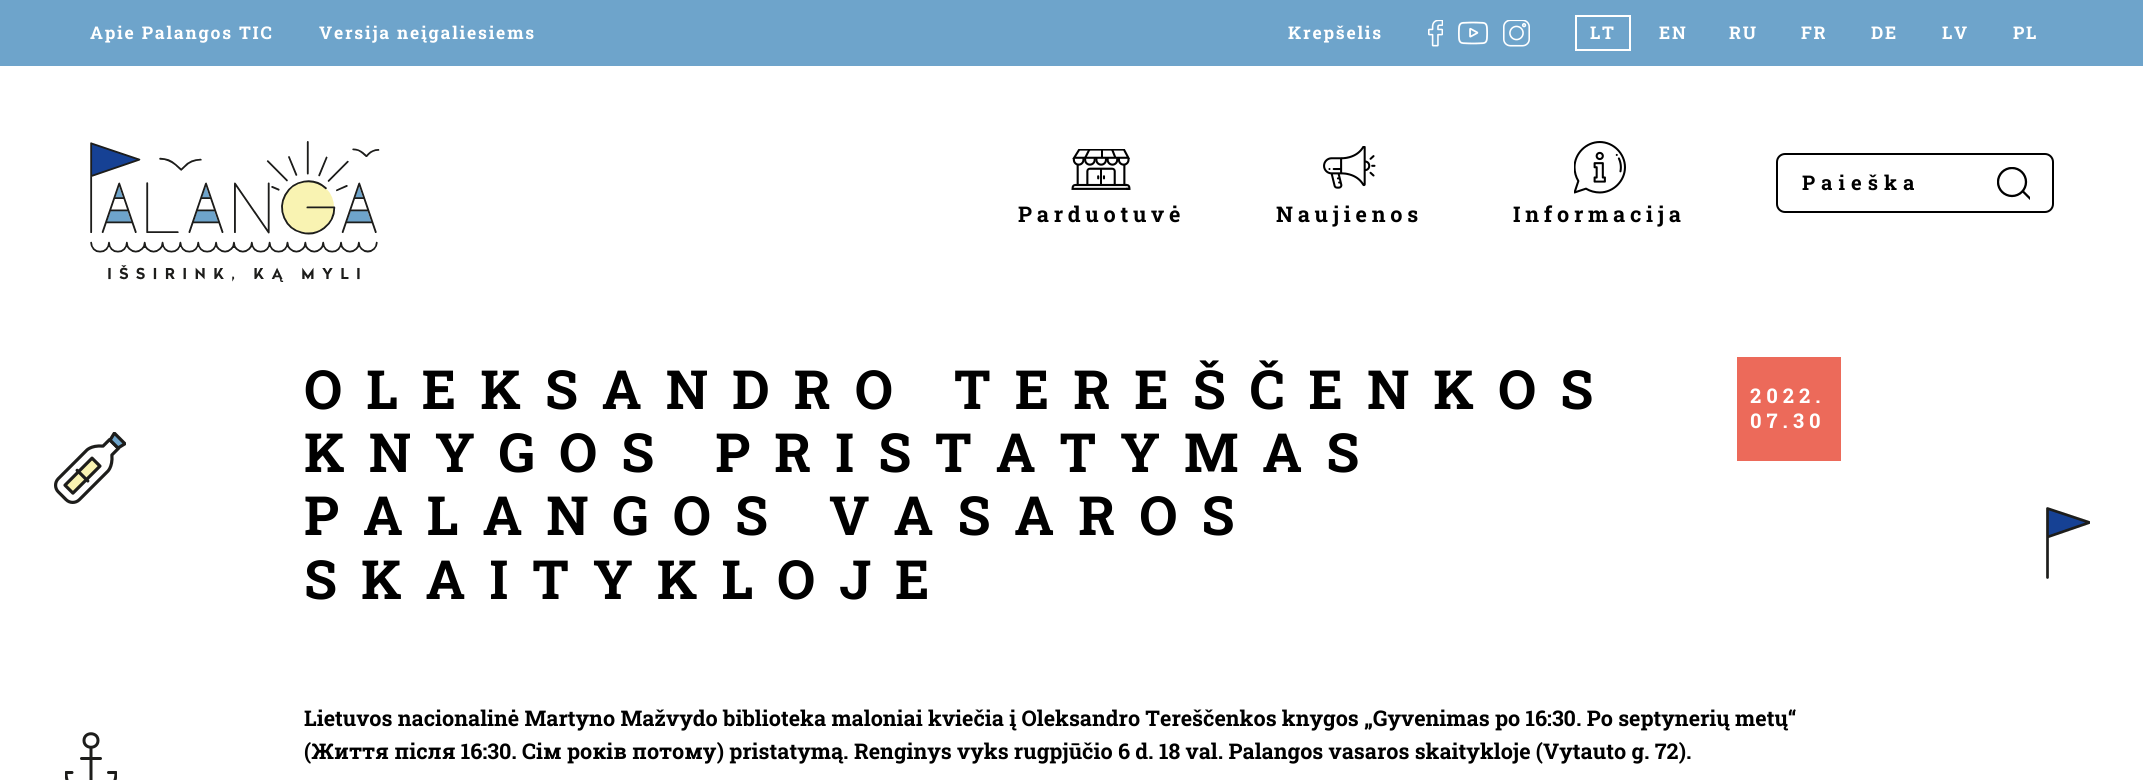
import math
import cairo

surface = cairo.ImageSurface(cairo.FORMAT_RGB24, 2143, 780)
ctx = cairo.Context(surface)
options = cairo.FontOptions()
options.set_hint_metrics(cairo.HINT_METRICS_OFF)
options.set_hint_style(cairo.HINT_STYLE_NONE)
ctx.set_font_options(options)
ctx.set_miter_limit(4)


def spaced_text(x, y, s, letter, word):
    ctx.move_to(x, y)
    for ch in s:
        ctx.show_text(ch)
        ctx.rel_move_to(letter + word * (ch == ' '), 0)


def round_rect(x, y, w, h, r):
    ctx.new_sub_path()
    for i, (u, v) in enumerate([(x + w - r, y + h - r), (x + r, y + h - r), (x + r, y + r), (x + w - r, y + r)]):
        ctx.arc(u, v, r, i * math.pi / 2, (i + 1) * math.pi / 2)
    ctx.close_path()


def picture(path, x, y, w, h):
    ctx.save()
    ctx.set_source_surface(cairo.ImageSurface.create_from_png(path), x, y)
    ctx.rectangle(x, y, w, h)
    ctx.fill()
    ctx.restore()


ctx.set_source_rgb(1, 1, 1)
ctx.paint()
ctx.set_source_rgb(0.431, 0.643, 0.796)
ctx.rectangle(0, 0, 2143, 66)
ctx.fill()
ctx.select_font_face("Roboto Slab", cairo.FONT_SLANT_NORMAL, cairo.FONT_WEIGHT_BOLD)
ctx.set_font_size(17.5)
ctx.set_source_rgb(1, 1, 1)
spaced_text(90, 39, "Apie Palangos TIC", 1.8, 0)
spaced_text(319, 39, "Versija neįgaliesiems", 1.8, 0)
spaced_text(1288, 39, "Krepšelis", 1.8, 0)
picture("img1.png", 1428, 20, 15, 27)
picture("img2.png", 1458, 21, 30, 24)
picture("img3.png", 1503, 20, 27, 27)
ctx.rectangle(1576, 16, 54, 34)
ctx.stroke()
spaced_text(1590, 39, "LT", 1.8, 0)
spaced_text(1659, 39, "EN", 1.8, 0)
spaced_text(1729, 39, "RU", 1.8, 0)
spaced_text(1801, 39, "FR", 1.8, 0)
spaced_text(1871, 39, "DE", 1.8, 0)
spaced_text(1942, 39, "LV", 1.8, 0)
spaced_text(2013, 39, "PL", 1.8, 0)
picture("img4.png", 90, 141, 290, 141)
round_rect(1777, 154, 276, 58, 8)
ctx.set_source_rgb(0, 0, 0)
ctx.stroke()
ctx.set_font_size(20.25)
spaced_text(1802, 190, "Paieška", 6, 0)
ctx.save()
ctx.rectangle(1997, 167, 33, 33)
ctx.clip()
ctx.arc(2012, 182, 14, 0, 2 * math.pi)
ctx.set_line_width(2.3)
ctx.stroke()
ctx.new_path()
ctx.move_to(2023, 191.5)
ctx.line_to(2032.5, 201)
ctx.set_line_cap(cairo.LINE_CAP_ROUND)
ctx.stroke()
ctx.restore()
picture("img5.png", 1071, 149, 60, 41)
ctx.set_font_size(21.6)
spaced_text(1018, 222, "Parduotuvė", 4.75, 0)
picture("img6.png", 1323, 146, 53, 43)
spaced_text(1276, 222, "Naujienos", 4.75, 0)
picture("img7.png", 1574, 141, 52, 53)
spaced_text(1513, 222, "Informacija", 4.75, 0)
ctx.set_font_size(54)
spaced_text(304, 409, "OLEKSANDRO TEREŠČENKOS", 24, 0)
spaced_text(304, 472, "KNYGOS PRISTATYMAS", 24, 0)
spaced_text(304, 535, "PALANGOS VASAROS", 24, 0)
spaced_text(304, 599, "SKAITYKLOJE", 24, 0)
ctx.set_source_rgb(0.922, 0.416, 0.353)
ctx.rectangle(1737, 357, 104, 104)
ctx.fill()
ctx.set_font_size(20.25)
ctx.set_source_rgb(1, 1, 1)
spaced_text(1750, 403, "2022.", 5, 0)
spaced_text(1750, 428, "07.", 5, 0)
spaced_text(1793, 428, "30", 5, 0)
ctx.set_font_size(21.6)
ctx.set_source_rgb(0, 0, 0)
ctx.move_to(304, 726)
ctx.show_text("Lietuvos nacionalinė Martyno Mažvydo biblioteka maloniai kviečia į Oleksandro Tereščenkos knygos „Gyvenimas po 16:30. Po septynerių metų“")
ctx.move_to(304, 759)
ctx.show_text("(Життя після 16:30. Сім років потому) pristatymą. Renginys vyks rugpjūčio 6 d. 18 val. Palangos vasaros skaitykloje (Vytauto g. 72).")
picture("img8.png", 54, 432, 72, 72)
ctx.set_source_rgb(0.086, 0.255, 0.58)
ctx.new_path()
ctx.move_to(2047, 537)
ctx.line_to(2089, 523)
ctx.line_to(2047, 508)
ctx.close_path()
ctx.fill()
ctx.save()
ctx.rectangle(2046, 507, 44, 72)
ctx.clip()
ctx.new_path()
ctx.move_to(2047.5, 537)
ctx.line_to(2089.5, 522.5)
ctx.line_to(2047.5, 508.5)
ctx.line_to(2047.5, 577.5)
ctx.set_source_rgb(0.114, 0.114, 0.106)
ctx.set_line_width(2.7)
ctx.set_line_cap(cairo.LINE_CAP_ROUND)
ctx.set_line_join(cairo.LINE_JOIN_ROUND)
ctx.stroke()
ctx.restore()
ctx.save()
ctx.rectangle(65, 732, 52, 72)
ctx.clip()
ctx.new_path()
ctx.move_to(108.5, 772.5)
ctx.line_to(116, 772.5)
ctx.curve_to(116, 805.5, 66, 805.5, 66, 772.5)
ctx.line_to(72, 772.5)
ctx.set_source_rgb(0.114, 0.114, 0.106)
ctx.set_line_width(3)
ctx.set_line_cap(cairo.LINE_CAP_ROUND)
ctx.set_line_join(cairo.LINE_JOIN_ROUND)
ctx.stroke()
ctx.restore()
ctx.new_path()
ctx.move_to(91, 748)
ctx.line_to(91, 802.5)
ctx.move_to(81.5, 758.5)
ctx.line_to(100.5, 758.5)
ctx.move_to(98, 740.5)
ctx.curve_to(98, 749.5, 84, 749.5, 84, 740.5)
ctx.curve_to(84, 731.5, 98, 731.5, 98, 740.5)
ctx.close_path()
ctx.set_source_rgb(0.114, 0.114, 0.106)
ctx.set_line_width(3)
ctx.set_line_cap(cairo.LINE_CAP_ROUND)
ctx.set_line_join(cairo.LINE_JOIN_ROUND)
ctx.stroke()
surface.write_to_png("page.png")
